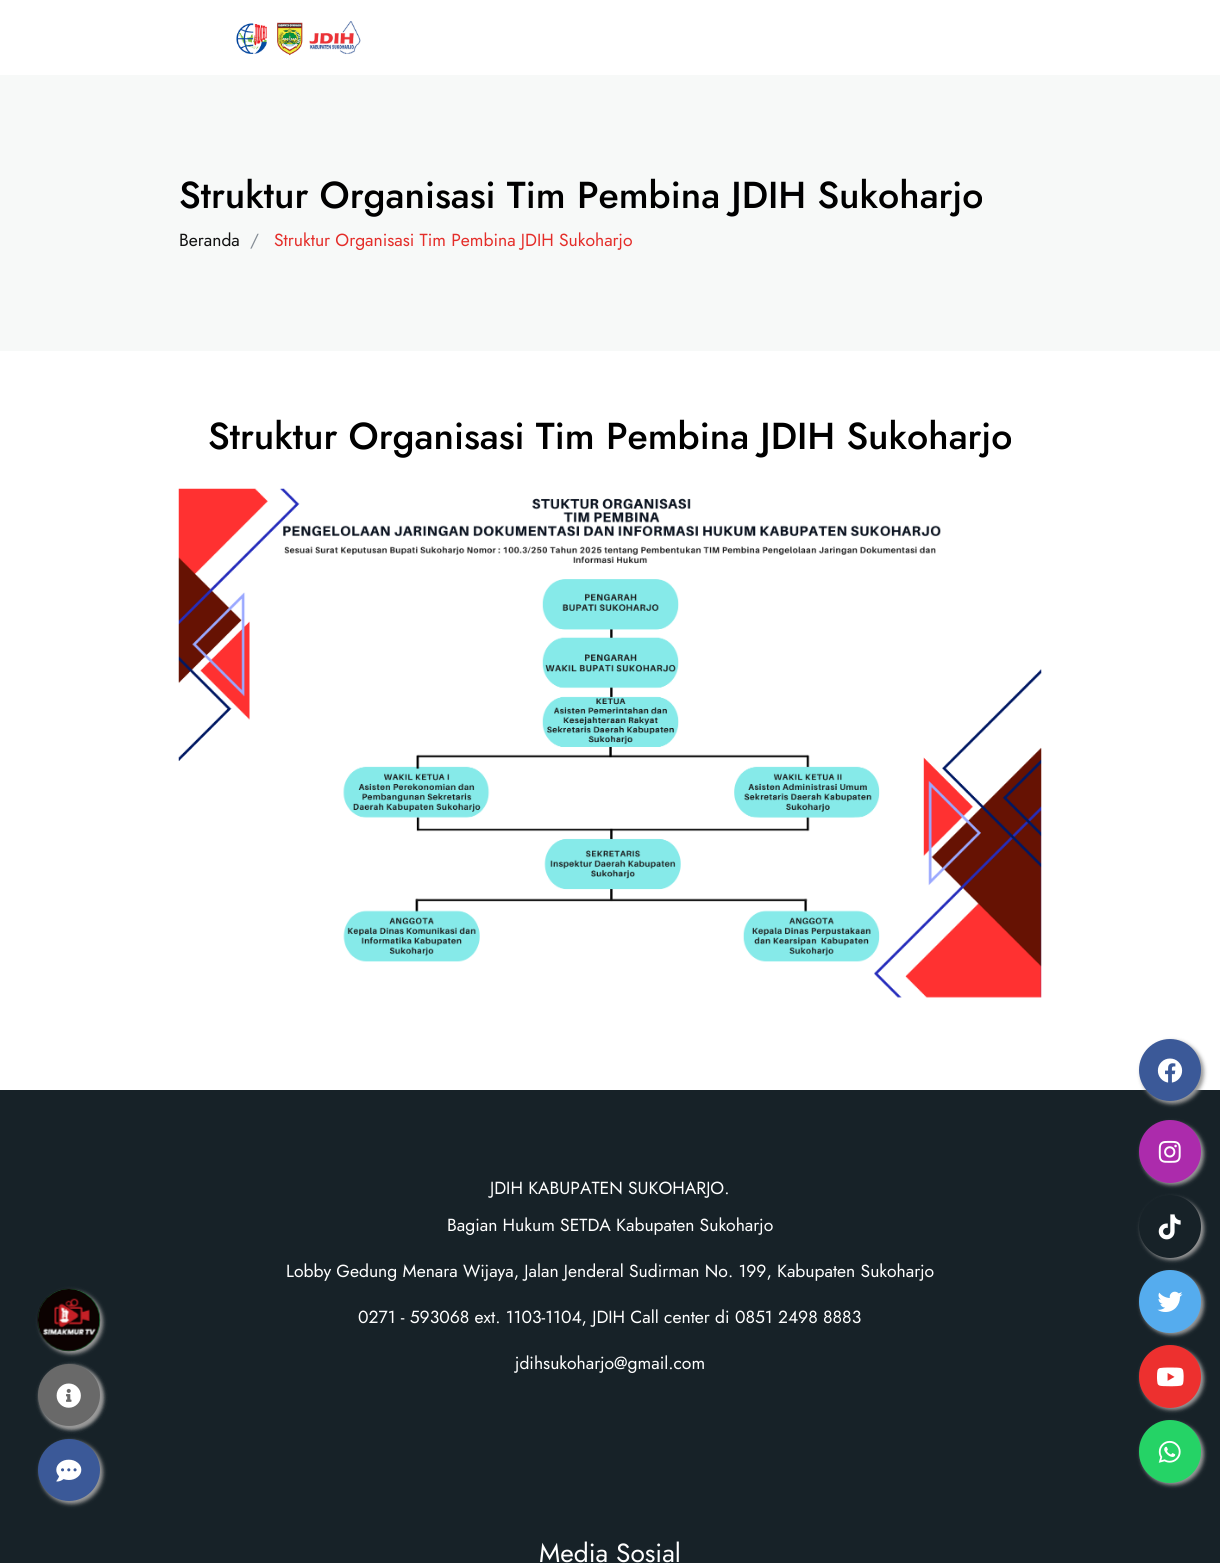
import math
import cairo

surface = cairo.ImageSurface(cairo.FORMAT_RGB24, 1220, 1563)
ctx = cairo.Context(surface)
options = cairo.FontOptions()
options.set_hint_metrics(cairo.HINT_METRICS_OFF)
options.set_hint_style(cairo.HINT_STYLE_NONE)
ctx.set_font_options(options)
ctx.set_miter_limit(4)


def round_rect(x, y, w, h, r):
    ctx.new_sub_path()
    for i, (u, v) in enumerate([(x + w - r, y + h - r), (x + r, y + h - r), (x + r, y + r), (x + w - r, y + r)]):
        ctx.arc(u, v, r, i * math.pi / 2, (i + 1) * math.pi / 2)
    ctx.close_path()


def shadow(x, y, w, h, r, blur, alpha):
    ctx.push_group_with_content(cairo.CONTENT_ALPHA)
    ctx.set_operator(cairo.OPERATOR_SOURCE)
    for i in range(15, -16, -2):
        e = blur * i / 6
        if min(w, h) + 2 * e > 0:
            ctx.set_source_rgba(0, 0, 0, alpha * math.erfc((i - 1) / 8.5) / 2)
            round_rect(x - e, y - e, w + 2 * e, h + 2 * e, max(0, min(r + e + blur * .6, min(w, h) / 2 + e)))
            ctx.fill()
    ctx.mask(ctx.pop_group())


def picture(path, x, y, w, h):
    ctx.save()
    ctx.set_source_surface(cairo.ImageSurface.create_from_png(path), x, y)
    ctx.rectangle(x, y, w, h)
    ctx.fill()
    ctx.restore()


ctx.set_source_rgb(1, 1, 1)
ctx.paint()
picture("img1.png", 236, 21, 125, 35)
ctx.set_source_rgb(0.965, 0.973, 0.969)
ctx.rectangle(0, 75, 1220, 276)
ctx.fill()
ctx.select_font_face("Jost Medium")
ctx.set_font_size(37.5)
ctx.set_source_rgb(0, 0, 0)
ctx.move_to(179, 208)
ctx.show_text("Struktur Organisasi Tim Pembina JDIH Sukoharjo")
ctx.select_font_face("Jost")
ctx.set_font_size(17.5)
ctx.set_source_rgb(0.067, 0.067, 0.067)
ctx.move_to(179, 246)
ctx.show_text("Beranda")
ctx.set_source_rgb(0.525, 0.557, 0.588)
ctx.move_to(250, 246)
ctx.show_text("/")
ctx.set_source_rgb(0.894, 0.176, 0.161)
ctx.move_to(274, 246)
ctx.show_text("Struktur Organisasi Tim Pembina JDIH Sukoharjo")
ctx.select_font_face("Jost Medium")
ctx.set_font_size(37.5)
ctx.set_source_rgb(0, 0, 0)
ctx.move_to(208, 449)
ctx.show_text("Struktur Organisasi Tim Pembina JDIH Sukoharjo")
picture("img2.png", 178, 488, 864, 510)
ctx.set_source_rgb(0.09, 0.133, 0.157)
ctx.rectangle(0, 1090, 1220, 473)
ctx.fill()
ctx.set_source_rgb(0.6, 0.6, 0.6)
shadow(1141, 1041, 63, 63, 31.5, 2, 1)
ctx.set_source_rgb(0.231, 0.349, 0.596)
ctx.arc(1170, 1070, 31, 0, 2 * math.pi)
ctx.fill()
picture("img3.png", 1157, 1058, 26, 25)
ctx.set_source_rgb(0.6, 0.6, 0.6)
shadow(1141, 1123, 63, 62, 31, 2, 1)
ctx.set_source_rgb(0.675, 0.169, 0.675)
round_rect(1139, 1120, 62, 63, 31)
ctx.fill()
picture("img4.png", 1158, 1140, 23, 23)
ctx.select_font_face("Jost")
ctx.set_font_size(17.5)
ctx.set_source_rgb(1, 1, 1)
ctx.move_to(490, 1194)
ctx.show_text("JDIH KABUPATEN SUKOHARJO.")
ctx.move_to(447, 1231)
ctx.show_text("Bagian Hukum SETDA Kabupaten Sukoharjo")
ctx.move_to(286, 1277)
ctx.show_text("Lobby Gedung Menara Wijaya, Jalan Jenderal Sudirman No. 199, Kabupaten Sukoharjo")
ctx.move_to(358, 1323)
ctx.show_text("0271 - 593068 ext. 1103-1104, JDIH Call center di 0851 2498 8883")
ctx.move_to(515, 1369)
ctx.show_text("jdihsukoharjo@gmail.com")
ctx.set_font_size(26.25)
ctx.move_to(539, 1562)
ctx.show_text("Media Sosial")
ctx.set_source_rgb(0.6, 0.6, 0.6)
shadow(1141, 1198, 63, 62, 31, 2, 1)
ctx.set_source_rgb(0.09, 0.133, 0.157)
round_rect(1139, 1195, 62, 63, 31)
ctx.fill()
picture("img5.png", 1158, 1214, 23, 26)
ctx.set_source_rgb(0.6, 0.6, 0.6)
shadow(40, 1366, 63, 63, 31.5, 2, 1)
shadow(40, 1291, 63, 63, 31.5, 2, 1)
ctx.set_source_rgb(0.145, 0.827, 0.4)
ctx.arc(69, 1320, 31, 0, 2 * math.pi)
ctx.fill()
picture("img6.png", 37, 1288, 64, 64)
ctx.set_source_rgb(0.6, 0.6, 0.6)
shadow(1141, 1273, 63, 62, 31, 2, 1)
ctx.set_source_rgb(0.333, 0.675, 0.933)
round_rect(1139, 1270, 62, 63, 31)
ctx.fill()
picture("img7.png", 1157, 1291, 26, 21)
ctx.set_source_rgb(0.6, 0.6, 0.6)
shadow(40, 1366, 63, 63, 31.5, 2, 1)
ctx.set_source_rgb(0.412, 0.412, 0.412)
ctx.arc(69, 1395, 31, 0, 2 * math.pi)
ctx.fill()
picture("img8.png", 56, 1383, 25, 25)
ctx.set_source_rgb(0.6, 0.6, 0.6)
shadow(1141, 1348, 63, 62, 31, 2, 1)
ctx.set_source_rgb(0.929, 0.188, 0.184)
round_rect(1139, 1345, 62, 63, 31)
ctx.fill()
picture("img9.png", 1157, 1367, 27, 20)
ctx.set_source_rgb(0.6, 0.6, 0.6)
shadow(40, 1441, 63, 63, 31.5, 2, 1)
ctx.set_source_rgb(0.231, 0.349, 0.596)
ctx.arc(69, 1470, 31, 0, 2 * math.pi)
ctx.fill()
picture("img10.png", 56, 1459, 26, 23)
ctx.set_source_rgb(0.6, 0.6, 0.6)
shadow(1141, 1423, 63, 62, 31, 2, 1)
ctx.set_source_rgb(0.145, 0.827, 0.4)
round_rect(1139, 1420, 62, 63, 31)
ctx.fill()
picture("img11.png", 1158, 1440, 23, 23)
surface.write_to_png("page.png")
